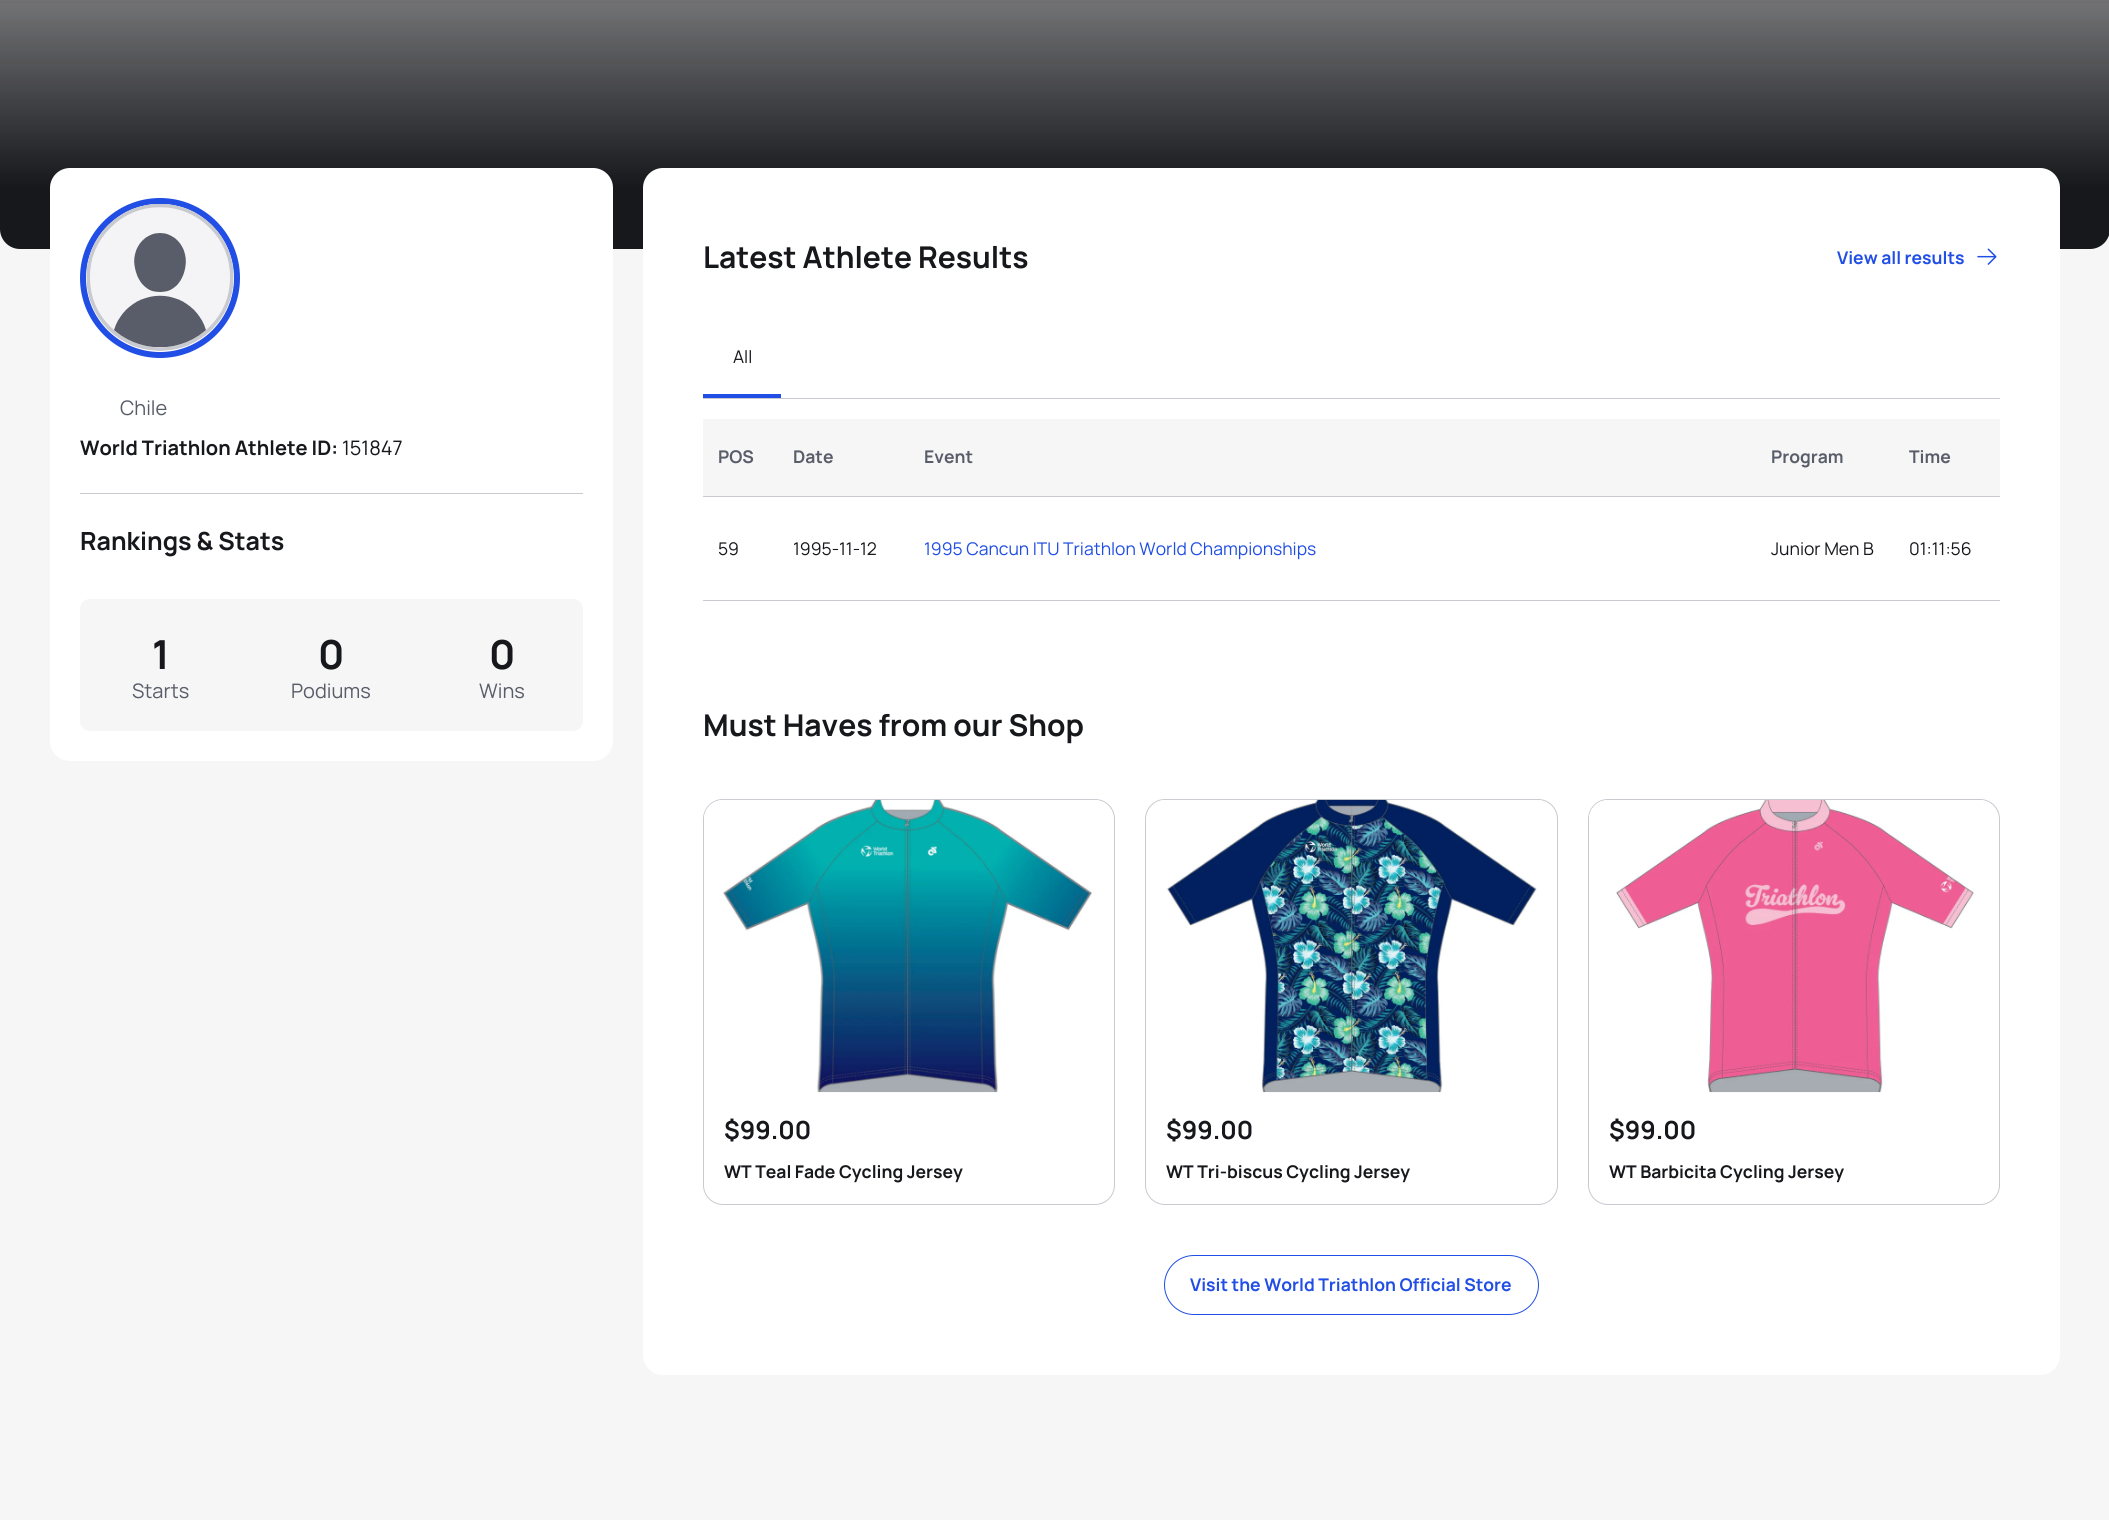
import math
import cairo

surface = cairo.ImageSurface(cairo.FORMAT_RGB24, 2109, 1520)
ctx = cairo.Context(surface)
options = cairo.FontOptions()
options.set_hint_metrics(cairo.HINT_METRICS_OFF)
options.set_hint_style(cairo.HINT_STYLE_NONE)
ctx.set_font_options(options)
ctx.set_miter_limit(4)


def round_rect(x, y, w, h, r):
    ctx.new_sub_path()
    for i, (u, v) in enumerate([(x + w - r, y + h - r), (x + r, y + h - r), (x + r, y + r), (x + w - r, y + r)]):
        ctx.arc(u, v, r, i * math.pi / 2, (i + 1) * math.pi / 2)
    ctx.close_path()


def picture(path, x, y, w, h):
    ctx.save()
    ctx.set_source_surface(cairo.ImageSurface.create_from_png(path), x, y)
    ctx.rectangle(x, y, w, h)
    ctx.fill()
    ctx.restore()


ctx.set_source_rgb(0.961, 0.961, 0.961)
ctx.paint()
gradient = cairo.LinearGradient(1055, 7.5, 1055, -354)
gradient.add_color_stop_rgba(0, 0.961, 0.961, 0.961, 1)
gradient.add_color_stop_rgba(0.8, 0.09, 0.094, 0.11, 1)
ctx.set_source(gradient)
ctx.rectangle(0, 0, 2109, 4)
ctx.fill()
gradient = cairo.LinearGradient(1055, -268, 1055, 249)
gradient.add_color_stop_rgba(0, 0.09, 0.094, 0.11, 0)
gradient.add_color_stop_rgba(0.88, 0.09, 0.094, 0.11, 1)
ctx.set_source(gradient)
ctx.new_path()
ctx.move_to(0, -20)
ctx.line_to(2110, -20)
ctx.line_to(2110, 229)
ctx.curve_to(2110, 240, 2101, 249, 2090, 249)
ctx.line_to(20, 249)
ctx.curve_to(9, 249, 0, 240, 0, 229)
ctx.close_path()
ctx.fill()
ctx.set_source_rgb(1, 1, 1)
round_rect(50, 168, 563, 593, 20)
ctx.fill()
ctx.arc(160, 278, 77, 0, 2 * math.pi)
ctx.set_source_rgb(0.129, 0.306, 0.894)
ctx.set_line_width(6)
ctx.stroke()
picture("img1.png", 86, 204, 148, 147)
ctx.select_font_face("Manrope")
ctx.set_font_size(20)
ctx.set_source_rgb(0.349, 0.365, 0.412)
ctx.move_to(120, 415)
ctx.show_text("Chile")
ctx.select_font_face("Manrope", cairo.FONT_SLANT_NORMAL, cairo.FONT_WEIGHT_BOLD)
ctx.set_source_rgb(0.09, 0.094, 0.11)
ctx.move_to(80, 455)
ctx.show_text("World Triathlon Athlete ID:")
ctx.select_font_face("Manrope")
ctx.move_to(342, 455)
ctx.show_text("151847")
ctx.set_source_rgb(0.784, 0.792, 0.816)
ctx.rectangle(80, 493, 503, 1)
ctx.fill()
ctx.select_font_face("Manrope", cairo.FONT_SLANT_NORMAL, cairo.FONT_WEIGHT_BOLD)
ctx.set_font_size(25)
ctx.set_source_rgb(0.09, 0.094, 0.11)
ctx.move_to(80, 550)
ctx.show_text("Rankings & Stats")
ctx.set_source_rgb(0.961, 0.961, 0.961)
round_rect(80, 599, 503, 132, 10)
ctx.fill()
ctx.set_font_size(40)
ctx.set_source_rgb(0.09, 0.094, 0.11)
ctx.move_to(152, 669)
ctx.show_text("1")
ctx.select_font_face("Manrope")
ctx.set_font_size(20)
ctx.set_source_rgb(0.349, 0.365, 0.412)
ctx.move_to(132, 698)
ctx.show_text("Starts")
ctx.select_font_face("Manrope", cairo.FONT_SLANT_NORMAL, cairo.FONT_WEIGHT_BOLD)
ctx.set_font_size(40)
ctx.set_source_rgb(0.09, 0.094, 0.11)
ctx.move_to(318, 669)
ctx.show_text("0")
ctx.select_font_face("Manrope")
ctx.set_font_size(20)
ctx.set_source_rgb(0.349, 0.365, 0.412)
ctx.move_to(291, 698)
ctx.show_text("Podiums")
ctx.select_font_face("Manrope", cairo.FONT_SLANT_NORMAL, cairo.FONT_WEIGHT_BOLD)
ctx.set_font_size(40)
ctx.set_source_rgb(0.09, 0.094, 0.11)
ctx.move_to(489, 669)
ctx.show_text("0")
ctx.select_font_face("Manrope")
ctx.set_font_size(20)
ctx.set_source_rgb(0.349, 0.365, 0.412)
ctx.move_to(479, 698)
ctx.show_text("Wins")
ctx.set_source_rgb(1, 1, 1)
round_rect(643, 168, 1417, 1207, 20)
ctx.fill()
ctx.select_font_face("Manrope", cairo.FONT_SLANT_NORMAL, cairo.FONT_WEIGHT_BOLD)
ctx.set_font_size(30)
ctx.set_source_rgb(0.09, 0.094, 0.11)
ctx.move_to(703, 268)
ctx.show_text("Latest Athlete Results")
ctx.set_font_size(17.5)
ctx.set_source_rgb(0.129, 0.306, 0.894)
ctx.move_to(1837, 264)
ctx.show_text("View all results")
picture("img2.png", 1977, 248, 20, 17)
ctx.select_font_face("Manrope")
ctx.set_source_rgb(0.09, 0.094, 0.11)
ctx.move_to(733, 363)
ctx.show_text("All")
ctx.set_source_rgb(0.129, 0.306, 0.894)
ctx.rectangle(703, 394, 78, 4)
ctx.fill()
ctx.set_source_rgb(0.784, 0.792, 0.816)
ctx.rectangle(703, 398, 1297, 1)
ctx.fill()
ctx.rectangle(703, 496, 1297, 1)
ctx.fill()
ctx.set_source_rgb(0.961, 0.961, 0.961)
ctx.rectangle(703, 419, 1297, 77)
ctx.fill()
ctx.select_font_face("Manrope", cairo.FONT_SLANT_NORMAL, cairo.FONT_WEIGHT_BOLD)
ctx.set_source_rgb(0.349, 0.365, 0.412)
ctx.move_to(718, 463)
ctx.show_text("POS")
ctx.move_to(793, 463)
ctx.show_text("Date")
ctx.move_to(924, 463)
ctx.show_text("Event")
ctx.move_to(1771, 463)
ctx.show_text("Program")
ctx.move_to(1909, 463)
ctx.show_text("Time")
ctx.set_source_rgb(0.784, 0.792, 0.816)
ctx.rectangle(703, 600, 1297, 1)
ctx.fill()
ctx.select_font_face("Manrope")
ctx.set_source_rgb(0.09, 0.094, 0.11)
ctx.move_to(718, 555)
ctx.show_text("59")
ctx.move_to(793, 555)
ctx.show_text("1995-11-12")
ctx.set_source_rgb(0.129, 0.306, 0.894)
ctx.move_to(924, 555)
ctx.show_text("1995 Cancun ITU Triathlon World Championships")
ctx.set_source_rgb(0.09, 0.094, 0.11)
ctx.move_to(1771, 555)
ctx.show_text("Junior Men B")
ctx.move_to(1909, 555)
ctx.show_text("01:11:56")
ctx.select_font_face("Manrope", cairo.FONT_SLANT_NORMAL, cairo.FONT_WEIGHT_BOLD)
ctx.set_font_size(30)
ctx.move_to(703, 736)
ctx.show_text("Must Haves from our Shop")
round_rect(703.5, 799.5, 411, 405, 19.5)
ctx.set_source_rgb(0.784, 0.792, 0.816)
ctx.set_line_width(1)
ctx.stroke()
picture("img3.png", 704, 799, 402, 294)
ctx.set_font_size(25)
ctx.set_source_rgb(0.09, 0.094, 0.11)
ctx.move_to(724, 1139)
ctx.show_text("$99.00")
ctx.set_font_size(17.5)
ctx.move_to(724, 1178)
ctx.show_text("WT Teal Fade Cycling Jersey")
round_rect(1145.5, 799.5, 412, 405, 19.5)
ctx.set_source_rgb(0.784, 0.792, 0.816)
ctx.stroke()
picture("img4.png", 1154, 799, 388, 294)
ctx.set_font_size(25)
ctx.set_source_rgb(0.09, 0.094, 0.11)
ctx.move_to(1166, 1139)
ctx.show_text("$99.00")
ctx.set_font_size(17.5)
ctx.move_to(1166, 1178)
ctx.show_text("WT Tri-biscus Cycling Jersey")
round_rect(1588.5, 799.5, 411, 405, 19.5)
ctx.set_source_rgb(0.784, 0.792, 0.816)
ctx.stroke()
picture("img5.png", 1589, 800, 402, 293)
ctx.set_font_size(25)
ctx.set_source_rgb(0.09, 0.094, 0.11)
ctx.move_to(1609, 1139)
ctx.show_text("$99.00")
ctx.set_font_size(17.5)
ctx.move_to(1609, 1178)
ctx.show_text("WT Barbicita Cycling Jersey")
round_rect(1164.5, 1255.5, 374, 59, 29.5)
ctx.set_source_rgb(0.129, 0.306, 0.894)
ctx.stroke()
ctx.move_to(1190, 1291)
ctx.show_text("Visit the World Triathlon Official Store")
surface.write_to_png("page.png")
